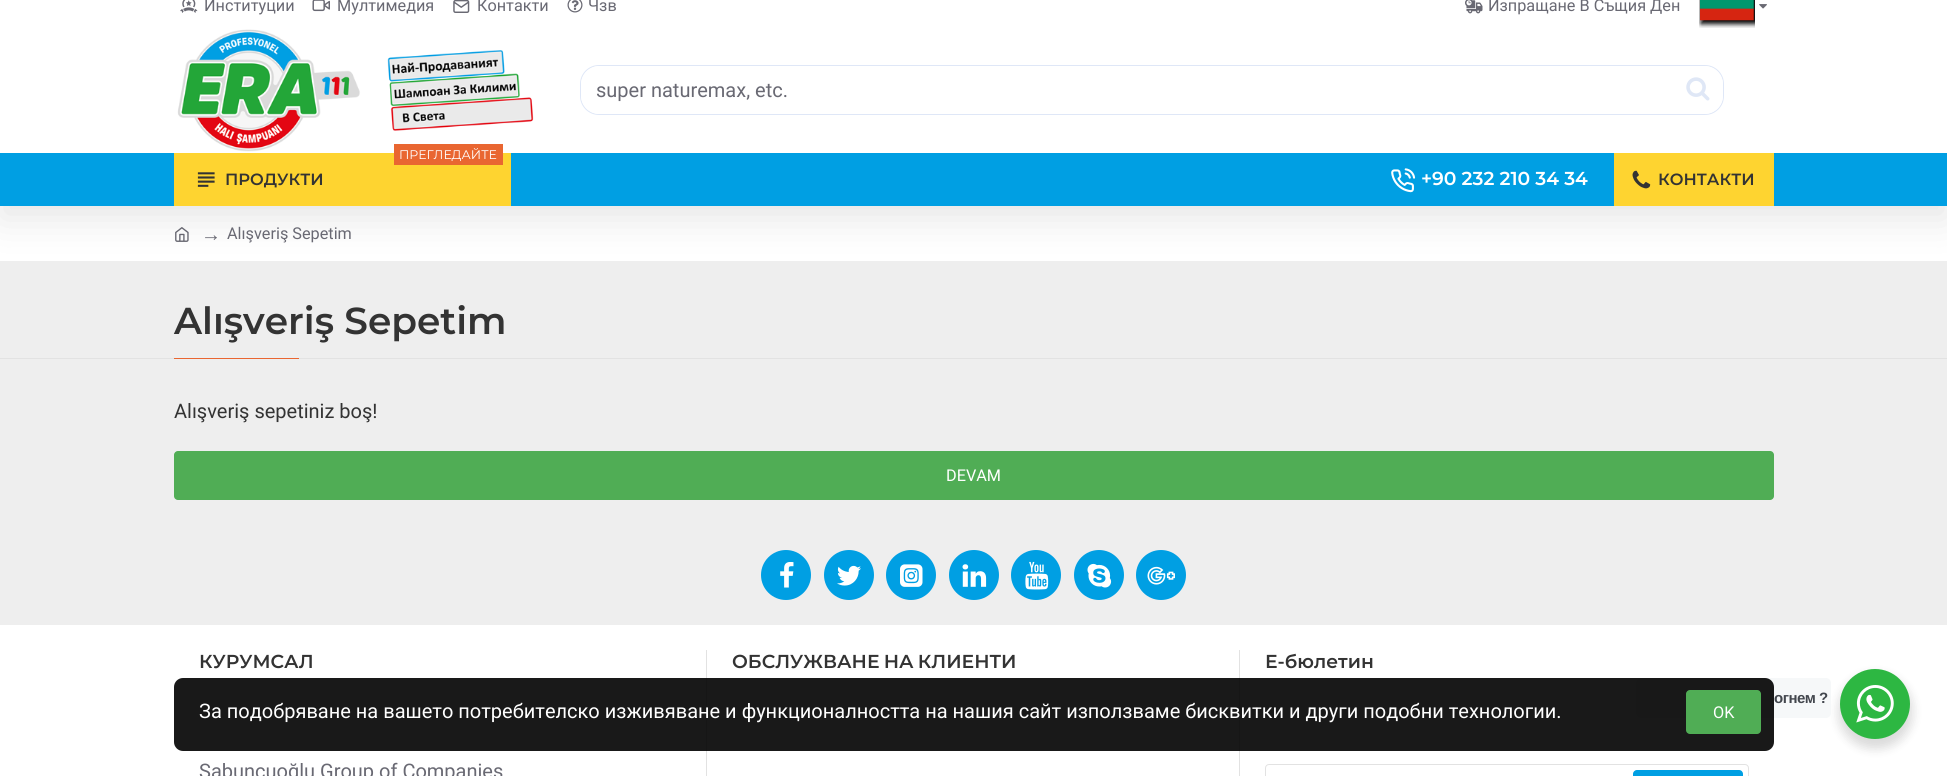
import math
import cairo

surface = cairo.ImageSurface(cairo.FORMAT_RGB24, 1947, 776)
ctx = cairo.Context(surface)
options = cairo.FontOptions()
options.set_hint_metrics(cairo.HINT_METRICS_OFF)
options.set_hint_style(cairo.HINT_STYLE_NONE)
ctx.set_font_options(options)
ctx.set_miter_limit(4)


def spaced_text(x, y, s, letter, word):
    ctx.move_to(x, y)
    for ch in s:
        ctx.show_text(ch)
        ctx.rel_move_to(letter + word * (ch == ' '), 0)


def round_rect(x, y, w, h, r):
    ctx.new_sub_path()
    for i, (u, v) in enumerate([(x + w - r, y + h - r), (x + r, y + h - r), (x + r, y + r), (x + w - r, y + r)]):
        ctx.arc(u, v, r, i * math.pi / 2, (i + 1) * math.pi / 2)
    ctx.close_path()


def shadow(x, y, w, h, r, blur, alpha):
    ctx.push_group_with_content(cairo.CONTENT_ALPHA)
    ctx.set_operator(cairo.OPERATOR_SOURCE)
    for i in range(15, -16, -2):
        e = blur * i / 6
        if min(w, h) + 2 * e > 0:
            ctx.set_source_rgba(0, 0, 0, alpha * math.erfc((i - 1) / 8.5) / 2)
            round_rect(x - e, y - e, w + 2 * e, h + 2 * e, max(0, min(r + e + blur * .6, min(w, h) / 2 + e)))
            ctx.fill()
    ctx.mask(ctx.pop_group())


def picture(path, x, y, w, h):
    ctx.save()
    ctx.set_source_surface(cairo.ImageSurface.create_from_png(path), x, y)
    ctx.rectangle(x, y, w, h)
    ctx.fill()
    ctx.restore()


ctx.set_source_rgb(0.933, 0.933, 0.933)
ctx.paint()
ctx.set_source_rgb(1, 1, 1)
ctx.rectangle(0, 206, 1947, 55)
ctx.fill()
picture("img13.png", 175, 227, 14, 15)
ctx.set_source_rgb(0, 0, 0)
shadow(0, -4, 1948, 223, 0, 19, 0.1)
ctx.set_source_rgb(1, 1, 1)
ctx.rectangle(0, 0, 1947, 153)
ctx.fill()
picture("img1.png", 180, 0, 18, 13)
ctx.select_font_face("Roboto")
ctx.set_font_size(16.25)
ctx.set_source_rgb(0.412, 0.412, 0.451)
ctx.move_to(204, 11)
ctx.show_text("Институции")
picture("img2.png", 312, 0, 18, 12)
ctx.move_to(337, 11)
ctx.show_text("Мултимедия")
picture("img3.png", 453, 0, 17, 13)
ctx.move_to(477, 11)
ctx.show_text("Контакти")
picture("img4.png", 567, 0, 16, 13)
ctx.move_to(588, 11)
ctx.show_text("Чзв")
picture("img5.png", 1465, 0, 18, 14)
ctx.move_to(1488, 11)
ctx.show_text("Изпращане В Същия Ден")
ctx.save()
ctx.rectangle(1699, 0, 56, 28)
ctx.clip()
ctx.set_source_rgb(0, 0, 0)
shadow(1701, -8, 57, 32, 0, 2.5, 1)
ctx.restore()
picture("img6.png", 1700, 0, 54, 21)
picture("img7.png", 1759, 4, 8, 5)
picture("img8.png", 177, 29, 357, 123)
round_rect(580.5, 65.5, 1143, 49, 18.5)
ctx.set_source_rgb(0.875, 0.906, 0.965)
ctx.set_line_width(1)
ctx.stroke()
ctx.set_source_rgb(1, 1, 1)
ctx.new_path()
ctx.move_to(600, 66)
ctx.line_to(1673, 66)
ctx.line_to(1673, 114)
ctx.line_to(600, 114)
ctx.curve_to(589.5, 114, 581, 105.5, 581, 95)
ctx.line_to(581, 85)
ctx.curve_to(581, 74.5, 589.5, 66, 600, 66)
ctx.close_path()
ctx.fill()
ctx.set_font_size(20)
ctx.set_source_rgb(0.412, 0.412, 0.451)
ctx.move_to(596, 97)
ctx.show_text("super naturemax, etc.")
ctx.set_source_rgb(1, 1, 1)
ctx.new_path()
ctx.move_to(1673, 66)
ctx.line_to(1704, 66)
ctx.curve_to(1714.5, 66, 1723, 74.5, 1723, 85)
ctx.line_to(1723, 95)
ctx.curve_to(1723, 105.5, 1714.5, 114, 1704, 114)
ctx.line_to(1673, 114)
ctx.close_path()
ctx.fill()
picture("img9.png", 1686, 77, 24, 24)
ctx.set_source_rgb(0, 0.624, 0.89)
ctx.rectangle(0, 153, 1947, 53)
ctx.fill()
ctx.set_source_rgb(0.996, 0.831, 0.188)
ctx.rectangle(174, 153, 337, 53)
ctx.fill()
ctx.set_source_rgb(0.914, 0.4, 0.192)
ctx.rectangle(394, 144, 109, 21)
ctx.fill()
ctx.select_font_face("Montserrat")
ctx.set_font_size(12.5)
ctx.set_source_rgb(1, 1, 1)
ctx.move_to(399, 159)
ctx.show_text("ПРЕГЛЕДАЙТЕ")
picture("img10.png", 197, 172, 18, 15)
ctx.select_font_face("Montserrat SemiBold")
ctx.set_font_size(16.25)
ctx.set_source_rgb(0.2, 0.2, 0.2)
ctx.move_to(225, 185)
ctx.show_text("ПРОДУКТИ")
picture("img11.png", 1391, 168, 25, 25)
ctx.set_font_size(18.75)
ctx.set_source_rgb(1, 1, 1)
ctx.move_to(1421, 185)
ctx.show_text("+90 232 210 34 34")
ctx.set_source_rgb(0.996, 0.831, 0.188)
ctx.rectangle(1614, 153, 160, 53)
ctx.fill()
picture("img12.png", 1632, 170, 19, 19)
ctx.set_font_size(16.25)
ctx.set_source_rgb(0.2, 0.2, 0.2)
ctx.move_to(1658, 185)
ctx.show_text("КОНТАКТИ")
ctx.select_font_face("Liberation Serif")
ctx.set_font_size(20)
ctx.set_source_rgb(0.412, 0.412, 0.451)
ctx.move_to(201, 241)
ctx.show_text("→")
ctx.select_font_face("Roboto")
ctx.set_font_size(16.25)
ctx.move_to(227, 239)
ctx.show_text("Alışveriş Sepetim")
ctx.set_source_rgb(0.886, 0.886, 0.886)
ctx.rectangle(0, 358, 1947, 1)
ctx.fill()
ctx.select_font_face("Montserrat SemiBold")
ctx.set_font_size(37.5)
ctx.set_source_rgb(0.2, 0.2, 0.2)
ctx.move_to(174, 334)
ctx.show_text("Alışveriş Sepetim")
ctx.set_source_rgb(0.914, 0.4, 0.192)
ctx.rectangle(174, 358, 125, 1)
ctx.fill()
ctx.select_font_face("Roboto")
ctx.set_font_size(20)
ctx.set_source_rgb(0.2, 0.2, 0.2)
ctx.move_to(174, 418)
ctx.show_text("Alışveriş sepetiniz boş!")
ctx.set_source_rgb(0.314, 0.678, 0.333)
round_rect(174, 451, 1600, 49, 4)
ctx.fill()
ctx.set_font_size(16.25)
ctx.set_source_rgb(1, 1, 1)
ctx.move_to(946, 481)
ctx.show_text("DEVAM")
ctx.rectangle(0, 625, 1947, 151)
ctx.fill()
ctx.set_source_rgb(0, 0.624, 0.89)
ctx.arc(786, 575, 25, 0, 2 * math.pi)
ctx.fill()
picture("img14.png", 780, 562, 14, 26)
ctx.arc(849, 575, 25, 0, 2 * math.pi)
ctx.fill()
picture("img15.png", 837, 565, 24, 21)
ctx.arc(911, 575, 25, 0, 2 * math.pi)
ctx.fill()
picture("img16.png", 900, 564, 23, 23)
ctx.arc(974, 575, 25, 0, 2 * math.pi)
ctx.fill()
picture("img17.png", 962, 564, 25, 23)
ctx.arc(1036, 575, 25, 0, 2 * math.pi)
ctx.fill()
picture("img18.png", 1025, 561, 24, 29)
ctx.arc(1099, 575, 25, 0, 2 * math.pi)
ctx.fill()
picture("img19.png", 1087, 563, 25, 25)
ctx.arc(1161, 575, 25, 0, 2 * math.pi)
ctx.fill()
picture("img20.png", 1147, 566, 28, 19)
ctx.set_source_rgb(0.886, 0.886, 0.886)
ctx.rectangle(706, 650, 1, 126)
ctx.fill()
ctx.select_font_face("Montserrat SemiBold")
ctx.set_font_size(18.75)
ctx.set_source_rgb(0.2, 0.2, 0.2)
ctx.move_to(199, 668)
ctx.show_text("КУРУМСАЛ")
ctx.select_font_face("Roboto")
ctx.set_font_size(20)
ctx.set_source_rgb(0.412, 0.412, 0.451)
ctx.move_to(199, 778)
ctx.show_text("Sabuncuoğlu Group of Companies")
ctx.set_source_rgb(0.886, 0.886, 0.886)
ctx.rectangle(1239, 650, 1, 126)
ctx.fill()
ctx.select_font_face("Montserrat SemiBold")
ctx.set_font_size(18.75)
ctx.set_source_rgb(0.2, 0.2, 0.2)
spaced_text(732, 668, "ОБСЛУЖВАНЕ НА КЛИЕНТИ", 0, -1)
ctx.move_to(1265, 668)
ctx.show_text("Е-бюлетин")
round_rect(1265.5, 764.5, 483, 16, 3.5)
ctx.set_source_rgb(0.886, 0.886, 0.886)
ctx.stroke()
ctx.set_source_rgb(0, 0.624, 0.89)
round_rect(1633, 770, 110, 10, 4)
ctx.fill()
ctx.set_source_rgb(0, 0, 0)
shadow(1838, 674, 75, 75, 37.5, 5, 0.14)
ctx.set_source_rgb(0.961, 0.969, 0.976)
round_rect(1636, 678, 195, 40, 5)
ctx.fill()
ctx.select_font_face("Liberation Sans", cairo.FONT_SLANT_NORMAL, cairo.FONT_WEIGHT_BOLD)
ctx.set_font_size(15)
ctx.set_source_rgb(0.263, 0.278, 0.306)
spaced_text(1774, 703, "огнем ?", -0.5, 0)
ctx.set_source_rgb(0.176, 0.718, 0.259)
ctx.new_path()
ctx.arc(1875, 704, 35, 0, 2 * math.pi)
ctx.fill()
picture("img21.png", 1856, 685, 38, 38)
ctx.set_source_rgba(0, 0, 0, 0.9)
round_rect(174, 678, 1600, 73, 9)
ctx.fill()
ctx.select_font_face("Roboto")
ctx.set_font_size(20)
ctx.set_source_rgb(1, 1, 1)
ctx.move_to(199, 718)
ctx.show_text("За подобряване на вашето потребителско изживяване и функционалността на нашия сайт използваме бисквитки и други подобни технологии.")
ctx.set_source_rgb(0.314, 0.678, 0.333)
round_rect(1686, 690, 75, 44, 4)
ctx.fill()
ctx.set_font_size(16.25)
ctx.set_source_rgb(1, 1, 1)
ctx.move_to(1713, 718)
ctx.show_text("OK")
surface.write_to_png("page.png")
